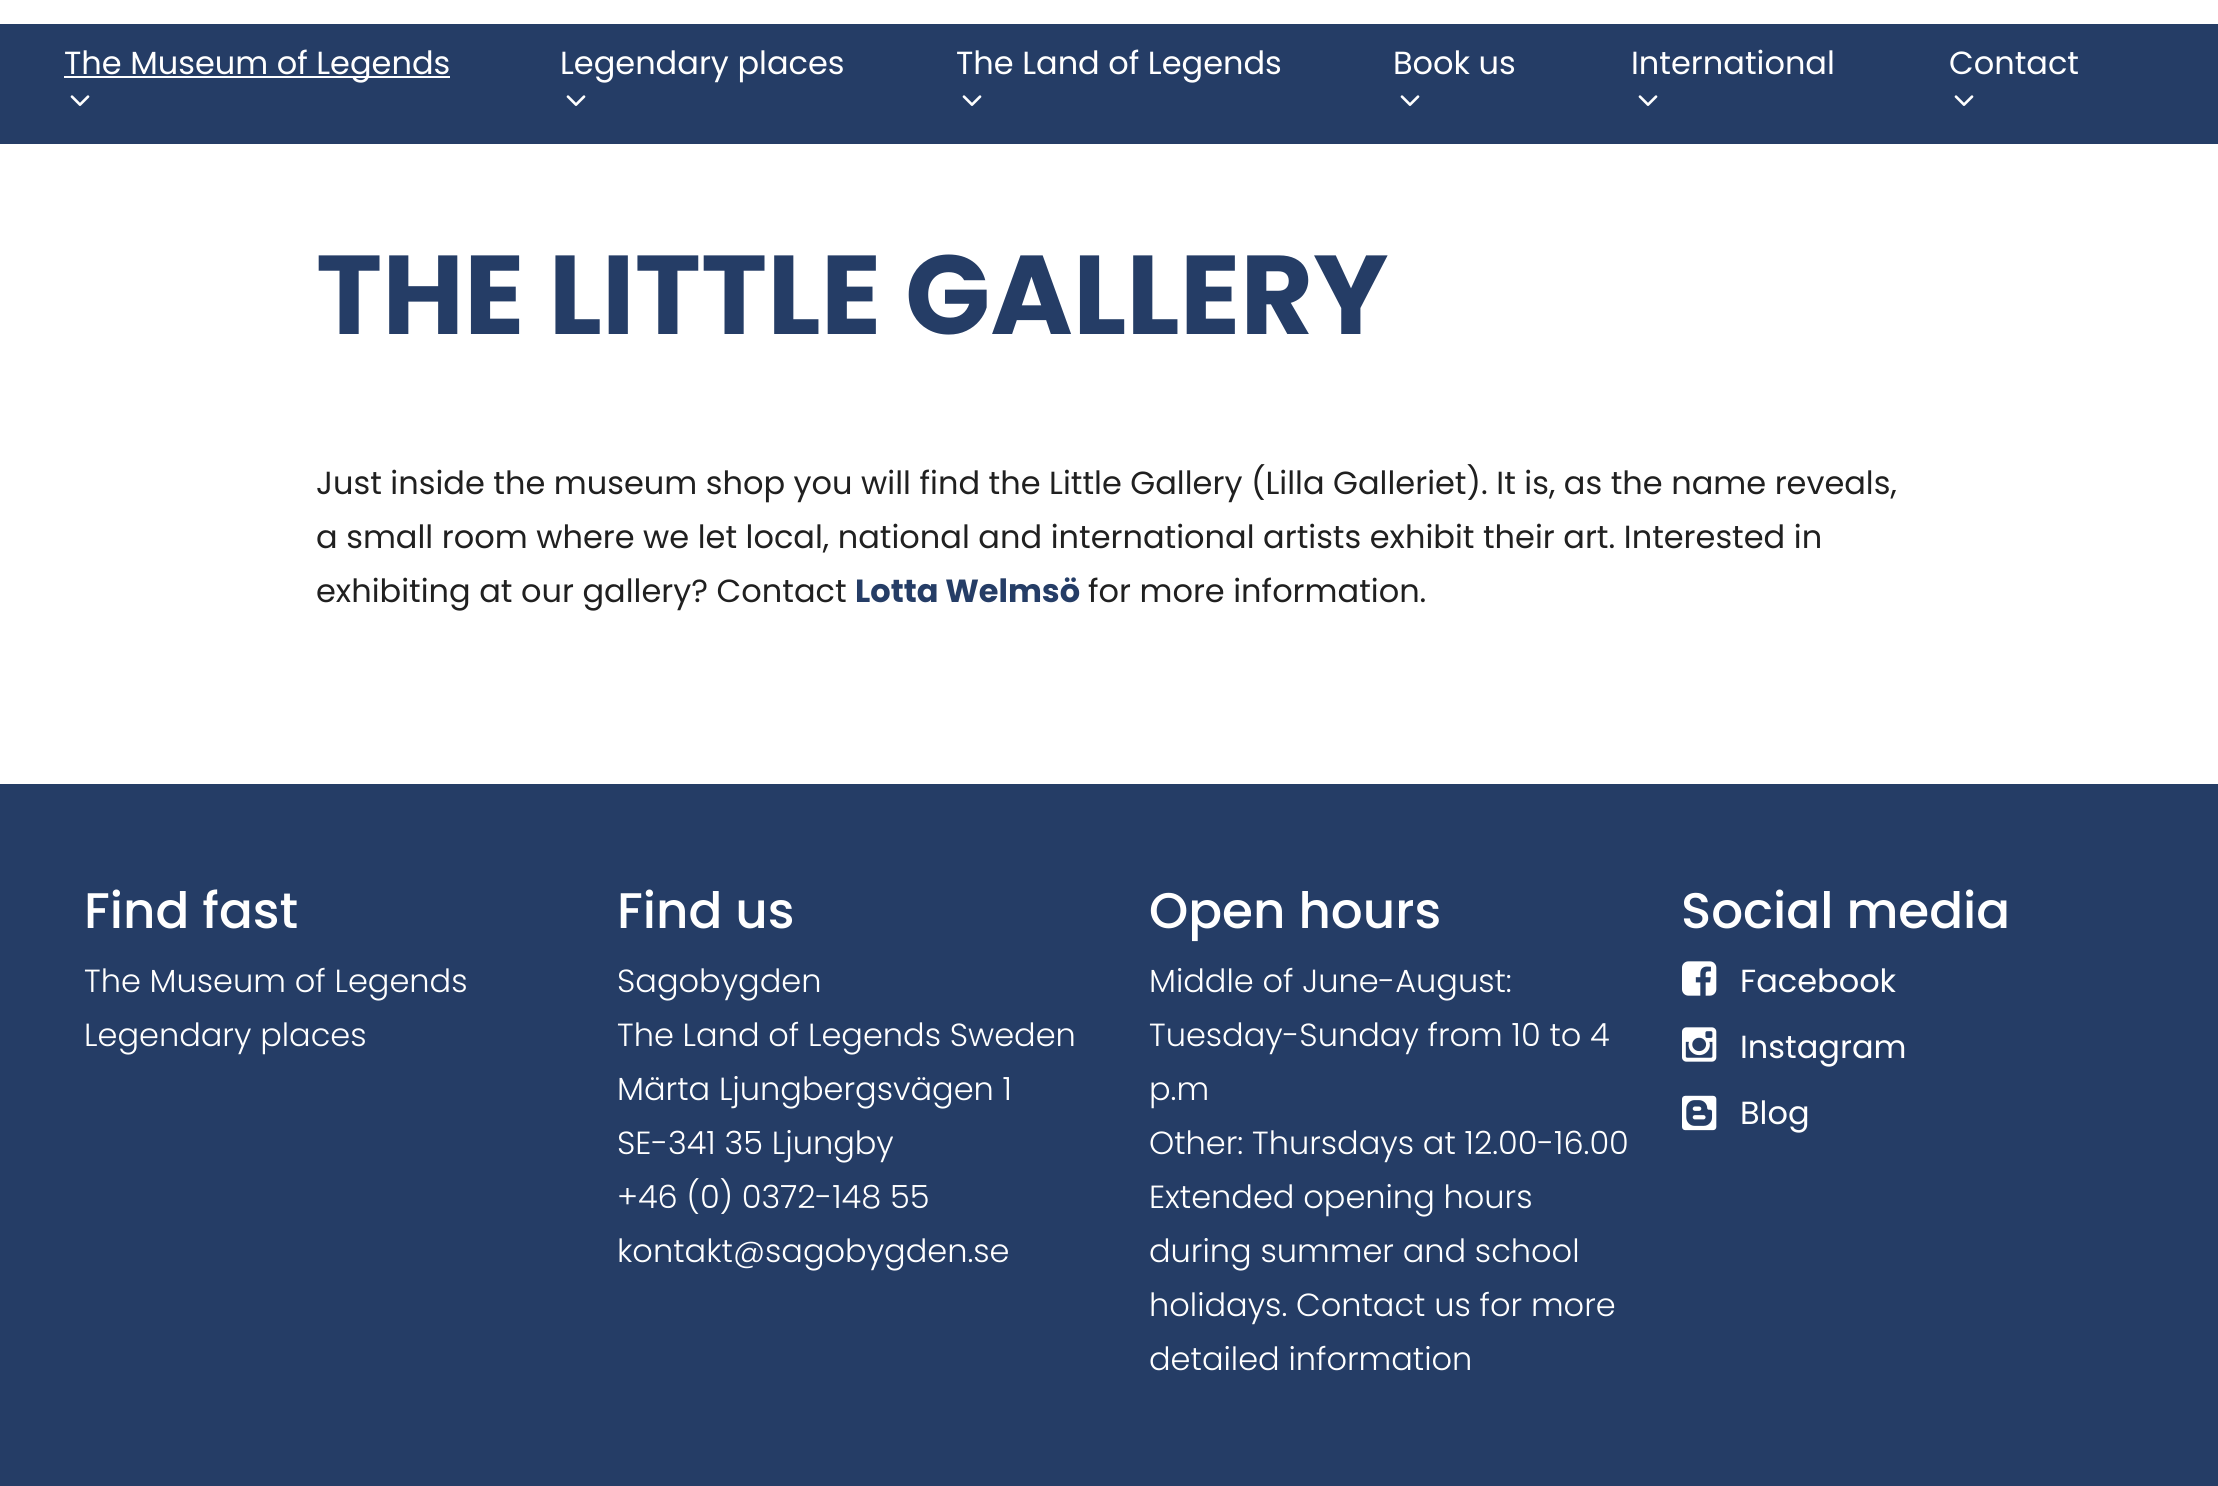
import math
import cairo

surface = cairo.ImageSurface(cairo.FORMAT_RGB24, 2218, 1486)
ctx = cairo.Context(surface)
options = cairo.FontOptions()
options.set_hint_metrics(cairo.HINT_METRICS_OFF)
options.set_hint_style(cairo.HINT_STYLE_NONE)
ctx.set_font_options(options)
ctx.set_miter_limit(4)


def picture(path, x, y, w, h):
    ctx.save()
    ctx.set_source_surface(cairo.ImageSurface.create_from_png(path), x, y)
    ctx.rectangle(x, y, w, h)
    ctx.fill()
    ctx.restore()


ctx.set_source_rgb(1, 1, 1)
ctx.paint()
ctx.set_source_rgb(0.145, 0.239, 0.4)
ctx.rectangle(0, 24, 2218, 120)
ctx.fill()
ctx.set_source_rgb(1, 1, 1)
ctx.rectangle(64, 76, 386, 2)
ctx.fill()
ctx.select_font_face("Poppins")
ctx.set_font_size(32)
ctx.move_to(64, 74)
ctx.show_text("The Museum of Legends")
picture("img1.png", 70, 95, 20, 11)
ctx.move_to(560, 74)
ctx.show_text("Legendary places")
picture("img1.png", 566, 95, 20, 11)
ctx.move_to(956, 74)
ctx.show_text("The Land of Legends")
picture("img1.png", 962, 95, 20, 11)
ctx.move_to(1393, 74)
ctx.show_text("Book us")
picture("img1.png", 1400, 95, 20, 11)
ctx.move_to(1631, 74)
ctx.show_text("International")
picture("img1.png", 1638, 95, 20, 11)
ctx.move_to(1949, 74)
ctx.show_text("Contact")
picture("img1.png", 1954, 95, 20, 11)
ctx.select_font_face("Poppins", cairo.FONT_SLANT_NORMAL, cairo.FONT_WEIGHT_BOLD)
ctx.set_font_size(112)
ctx.set_source_rgb(0.145, 0.239, 0.4)
ctx.move_to(316, 334)
ctx.show_text("THE LITTLE GALLERY")
ctx.select_font_face("Poppins")
ctx.set_font_size(32)
ctx.set_source_rgb(0.125, 0.125, 0.125)
ctx.move_to(316, 494)
ctx.show_text("Just inside the museum shop you will find the Little Gallery (Lilla Galleriet). It is, as the name reveals,")
ctx.move_to(316, 548)
ctx.show_text("a small room where we let local, national and international artists exhibit their art. Interested in")
ctx.move_to(316, 602)
ctx.show_text("exhibiting at our gallery? Contact")
ctx.select_font_face("Poppins", cairo.FONT_SLANT_NORMAL, cairo.FONT_WEIGHT_BOLD)
ctx.set_source_rgb(0.145, 0.239, 0.4)
ctx.move_to(855, 602)
ctx.show_text("Lotta Welmsö")
ctx.select_font_face("Poppins")
ctx.set_source_rgb(0.125, 0.125, 0.125)
ctx.move_to(1088, 602)
ctx.show_text("for more information.")
ctx.set_source_rgb(0.145, 0.239, 0.4)
ctx.rectangle(0, 784, 2218, 702)
ctx.fill()
ctx.select_font_face("Poppins Medium")
ctx.set_font_size(50)
ctx.set_source_rgb(1, 1, 1)
ctx.move_to(84, 928)
ctx.show_text("Find fast")
ctx.select_font_face("Poppins Light")
ctx.set_font_size(32)
ctx.move_to(84, 992)
ctx.show_text("The Museum of Legends")
ctx.move_to(84, 1046)
ctx.show_text("Legendary places")
ctx.select_font_face("Poppins Medium")
ctx.set_font_size(50)
ctx.move_to(617, 928)
ctx.show_text("Find us")
ctx.select_font_face("Poppins Light")
ctx.set_font_size(32)
ctx.move_to(617, 992)
ctx.show_text("Sagobygden")
ctx.move_to(617, 1046)
ctx.show_text("The Land of Legends Sweden")
ctx.move_to(617, 1100)
ctx.show_text("Märta Ljungbergsvägen 1")
ctx.move_to(617, 1154)
ctx.show_text("SE-341 35 Ljungby")
ctx.move_to(617, 1208)
ctx.show_text("+46 (0) 0372-148 55")
ctx.move_to(617, 1262)
ctx.show_text("kontakt@sagobygden.se")
ctx.select_font_face("Poppins Medium")
ctx.set_font_size(50)
ctx.move_to(1149, 928)
ctx.show_text("Open hours")
ctx.select_font_face("Poppins Light")
ctx.set_font_size(32)
ctx.move_to(1149, 992)
ctx.show_text("Middle of June-August:")
ctx.move_to(1149, 1046)
ctx.show_text("Tuesday-Sunday from 10 to 4")
ctx.move_to(1149, 1100)
ctx.show_text("p.m")
ctx.move_to(1149, 1154)
ctx.show_text("Other: Thursdays at 12.00-16.00")
ctx.move_to(1149, 1208)
ctx.show_text("Extended opening hours")
ctx.move_to(1149, 1262)
ctx.show_text("during summer and school")
ctx.move_to(1149, 1316)
ctx.show_text("holidays. Contact us for more")
ctx.move_to(1149, 1370)
ctx.show_text("detailed information")
ctx.select_font_face("Poppins Medium")
ctx.set_font_size(50)
ctx.move_to(1681, 928)
ctx.show_text("Social media")
picture("img2.png", 1682, 961, 35, 35)
ctx.select_font_face("Poppins")
ctx.set_font_size(32)
ctx.move_to(1740, 992)
ctx.show_text("Facebook")
picture("img3.png", 1682, 1027, 35, 35)
ctx.move_to(1740, 1058)
ctx.show_text("Instagram")
picture("img4.png", 1682, 1095, 35, 36)
ctx.move_to(1740, 1124)
ctx.show_text("Blog")
surface.write_to_png("page.png")
